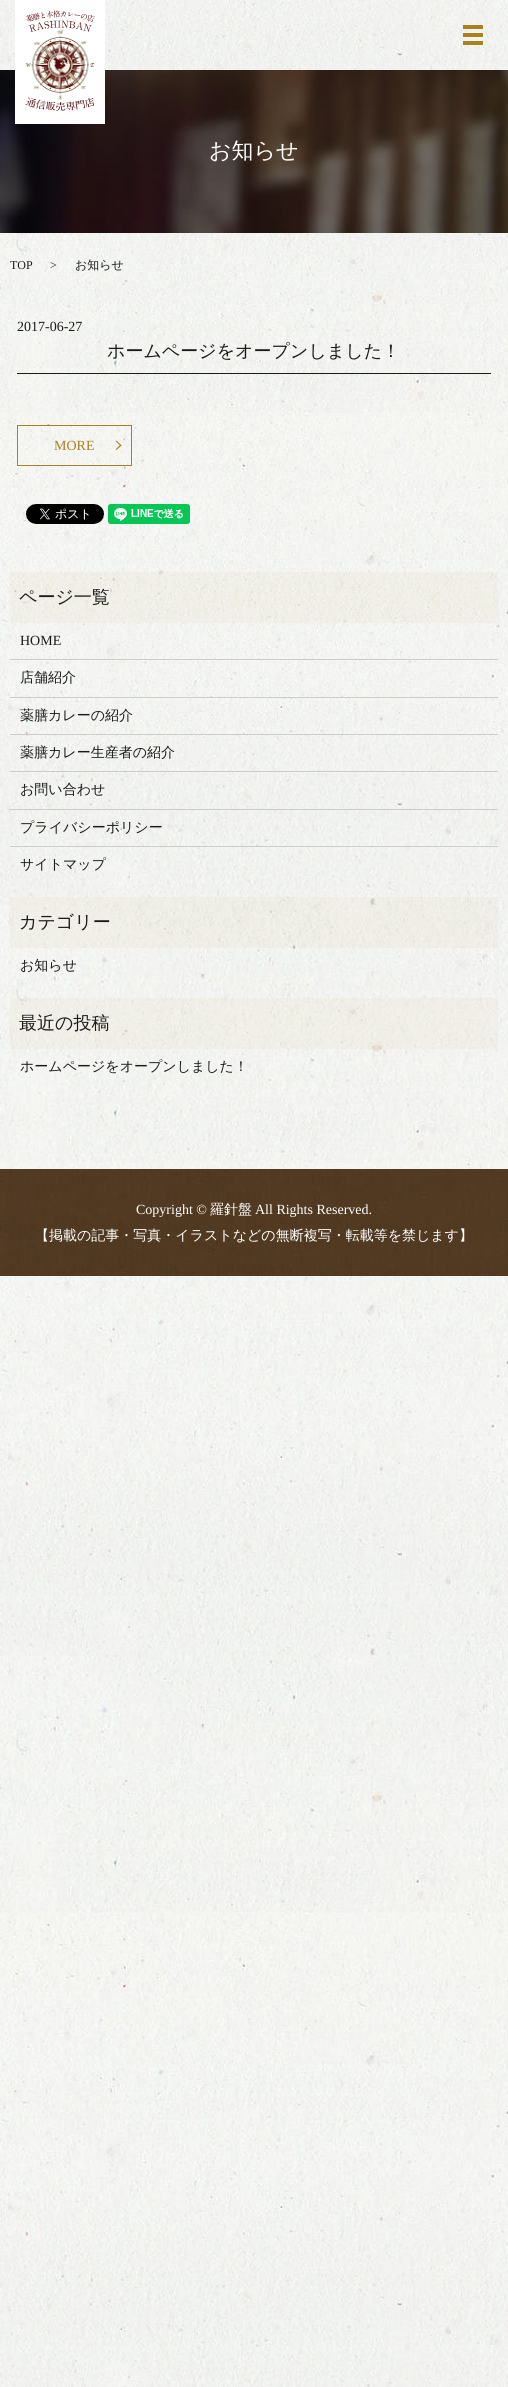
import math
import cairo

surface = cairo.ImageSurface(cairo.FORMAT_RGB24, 508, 2387)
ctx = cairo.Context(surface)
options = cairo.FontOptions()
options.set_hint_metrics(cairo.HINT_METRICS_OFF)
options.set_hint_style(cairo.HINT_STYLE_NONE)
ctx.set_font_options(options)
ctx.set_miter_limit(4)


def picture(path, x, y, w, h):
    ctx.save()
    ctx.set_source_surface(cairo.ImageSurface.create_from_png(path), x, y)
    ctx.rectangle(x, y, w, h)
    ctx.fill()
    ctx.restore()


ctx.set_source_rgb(1, 1, 1)
ctx.paint()
picture("img1.png", 0, 0, 508, 2387)
picture("img3.png", 0, 70, 508, 163)
ctx.set_source_rgb(1, 1, 1)
ctx.rectangle(15, 0, 90, 124)
ctx.fill()
picture("img2.png", 25, 10, 70, 101)
ctx.set_source_rgb(0.663, 0.506, 0.125)
ctx.rectangle(463, 25, 20, 4)
ctx.fill()
ctx.rectangle(463, 33, 20, 4)
ctx.fill()
ctx.rectangle(463, 41, 20, 4)
ctx.fill()
ctx.select_font_face("WenQuanYi Zen Hei Medium")
ctx.set_font_size(22)
ctx.set_source_rgb(1, 1, 1)
ctx.move_to(209, 158)
ctx.show_text("お知らせ")
ctx.select_font_face("Liberation Serif")
ctx.set_font_size(12)
ctx.set_source_rgb(0.106, 0.106, 0.106)
ctx.move_to(10, 269)
ctx.show_text("TOP")
ctx.move_to(50, 269)
ctx.show_text(">")
ctx.select_font_face("WenQuanYi Zen Hei Medium")
ctx.move_to(75, 269)
ctx.show_text("お知らせ")
ctx.select_font_face("Liberation Serif")
ctx.set_font_size(14)
ctx.move_to(17, 331)
ctx.show_text("2017-06-27")
ctx.rectangle(17, 373, 474, 1)
ctx.fill()
ctx.select_font_face("WenQuanYi Zen Hei Medium")
ctx.set_font_size(18)
ctx.move_to(107, 357)
ctx.show_text("ホームページをオープンしました！")
ctx.rectangle(17.5, 425.5, 114, 40)
ctx.set_source_rgb(0.663, 0.506, 0.125)
ctx.set_line_width(1)
ctx.stroke()
ctx.select_font_face("Liberation Serif")
ctx.set_font_size(14)
ctx.move_to(54, 450)
ctx.show_text("MORE")
ctx.new_path()
ctx.move_to(116.5, 440.5)
ctx.line_to(121.5, 445.5)
ctx.line_to(120.5, 446)
ctx.line_to(115.5, 441)
ctx.close_path()
ctx.fill()
ctx.new_path()
ctx.move_to(120.5, 444.5)
ctx.line_to(121.5, 445.5)
ctx.line_to(116.5, 450)
ctx.line_to(115.5, 449.5)
ctx.close_path()
ctx.fill()
picture("img4.png", 26, 504, 78, 20)
picture("img5.png", 108, 504, 82, 20)
ctx.set_source_rgba(0.663, 0.506, 0.125, 0.05)
ctx.rectangle(10, 572, 488, 51)
ctx.fill()
ctx.select_font_face("WenQuanYi Zen Hei Medium")
ctx.set_font_size(18)
ctx.set_source_rgb(0.106, 0.106, 0.106)
ctx.move_to(19, 603)
ctx.show_text("ページ一覧")
ctx.set_source_rgb(0.8, 0.8, 0.8)
ctx.rectangle(10, 659, 488, 1)
ctx.fill()
ctx.select_font_face("Liberation Serif")
ctx.set_font_size(14)
ctx.set_source_rgb(0.106, 0.106, 0.106)
ctx.move_to(20, 645)
ctx.show_text("HOME")
ctx.set_source_rgb(0.8, 0.8, 0.8)
ctx.rectangle(10, 697, 488, 1)
ctx.fill()
ctx.select_font_face("WenQuanYi Zen Hei Medium")
ctx.set_source_rgb(0.106, 0.106, 0.106)
ctx.move_to(20, 682)
ctx.show_text("店舗紹介")
ctx.set_source_rgb(0.8, 0.8, 0.8)
ctx.rectangle(10, 734, 488, 1)
ctx.fill()
ctx.set_source_rgb(0.106, 0.106, 0.106)
ctx.move_to(20, 720)
ctx.show_text("薬膳カレーの紹介")
ctx.set_source_rgb(0.8, 0.8, 0.8)
ctx.rectangle(10, 771, 488, 1)
ctx.fill()
ctx.set_source_rgb(0.106, 0.106, 0.106)
ctx.move_to(20, 757)
ctx.show_text("薬膳カレー生産者の紹介")
ctx.set_source_rgb(0.8, 0.8, 0.8)
ctx.rectangle(10, 809, 488, 1)
ctx.fill()
ctx.set_source_rgb(0.106, 0.106, 0.106)
ctx.move_to(20, 794)
ctx.show_text("お問い合わせ")
ctx.set_source_rgb(0.8, 0.8, 0.8)
ctx.rectangle(10, 846, 488, 1)
ctx.fill()
ctx.set_source_rgb(0.106, 0.106, 0.106)
ctx.move_to(20, 832)
ctx.show_text("プライバシーポリシー")
ctx.move_to(20, 869)
ctx.show_text("サイトマップ")
ctx.set_source_rgba(0.663, 0.506, 0.125, 0.05)
ctx.rectangle(10, 897, 488, 51)
ctx.fill()
ctx.set_font_size(18)
ctx.set_source_rgb(0.106, 0.106, 0.106)
ctx.move_to(19, 928)
ctx.show_text("カテゴリー")
ctx.set_font_size(14)
ctx.move_to(20, 970)
ctx.show_text("お知らせ")
ctx.set_source_rgba(0.663, 0.506, 0.125, 0.05)
ctx.rectangle(10, 998, 488, 51)
ctx.fill()
ctx.set_font_size(18)
ctx.set_source_rgb(0.106, 0.106, 0.106)
ctx.move_to(19, 1029)
ctx.show_text("最近の投稿")
ctx.set_font_size(14)
ctx.move_to(20, 1071)
ctx.show_text("ホームページをオープンしました！")
picture("img6.png", 0, 1169, 508, 107)
ctx.select_font_face("Liberation Serif")
ctx.set_source_rgb(1, 1, 1)
ctx.move_to(136, 1214)
ctx.show_text("Copyright ©")
ctx.select_font_face("WenQuanYi Zen Hei Medium")
ctx.move_to(210, 1214)
ctx.show_text("羅針盤")
ctx.select_font_face("Liberation Serif")
ctx.move_to(255, 1214)
ctx.show_text("All Rights Reserved.")
ctx.select_font_face("WenQuanYi Zen Hei Medium")
ctx.move_to(35, 1240)
ctx.show_text("【掲載の記事・写真・イラストなどの無断複写・転載等を禁じます】")
surface.write_to_png("page.png")
